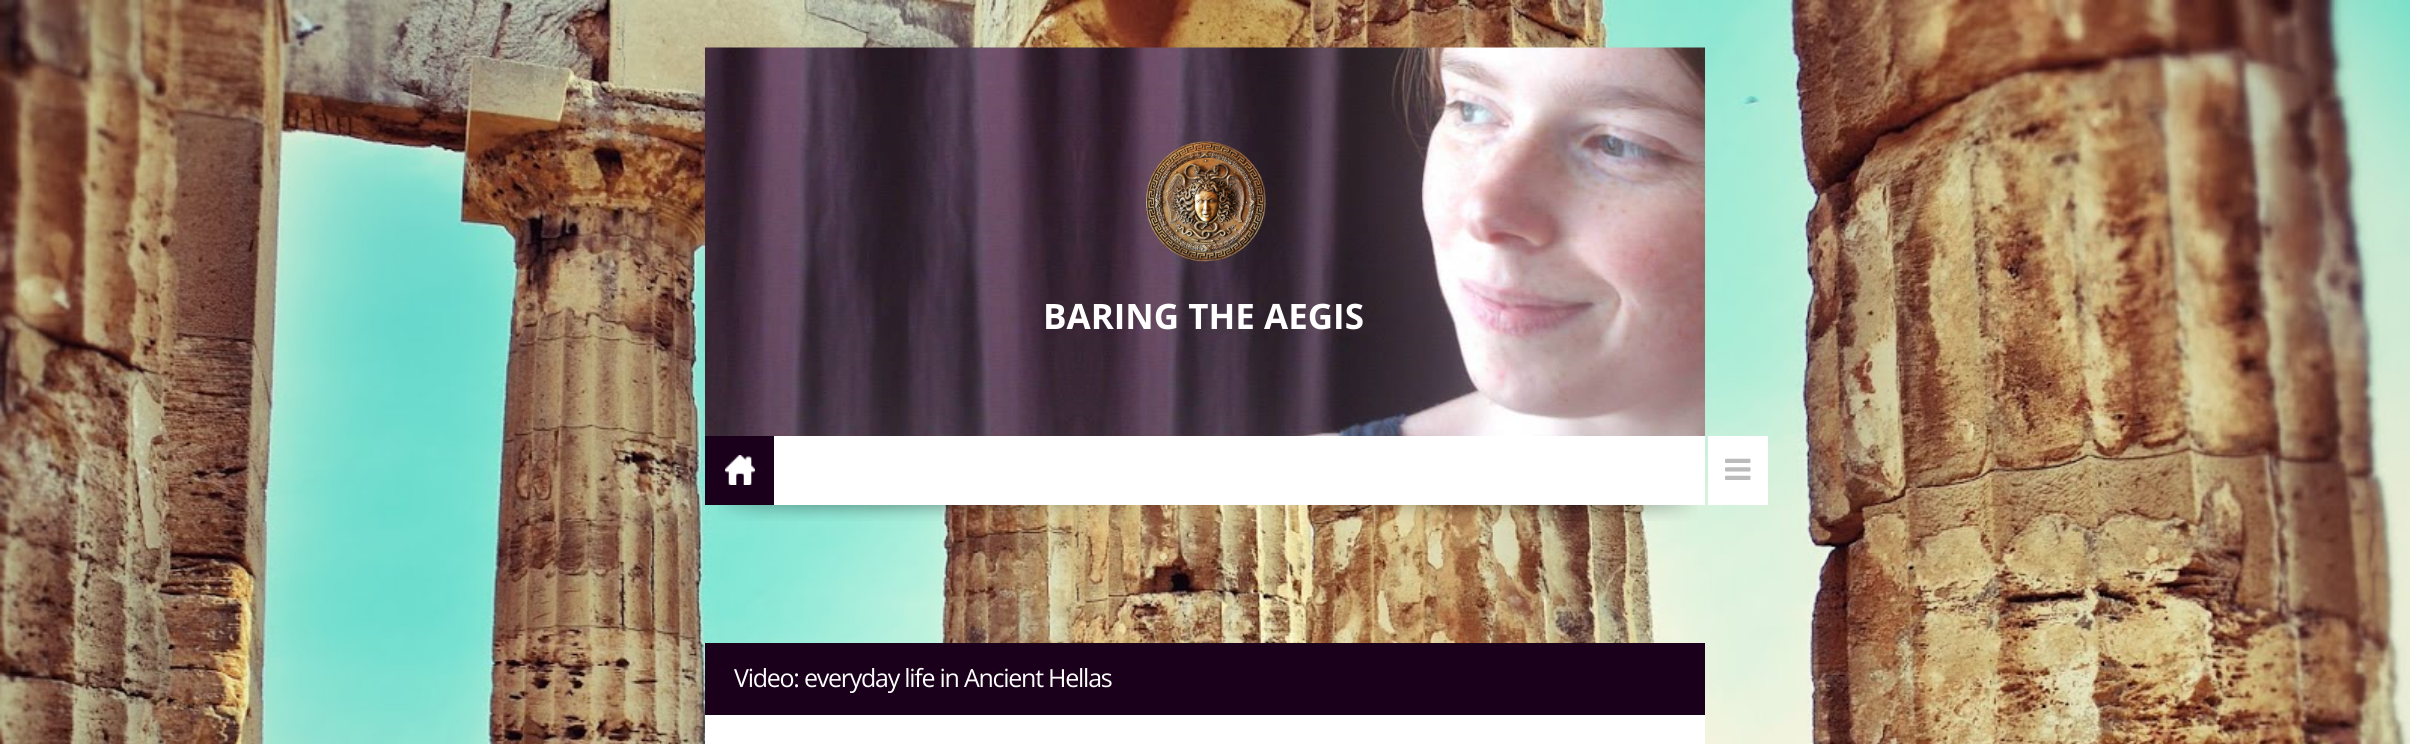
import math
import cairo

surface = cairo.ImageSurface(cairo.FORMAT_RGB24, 2410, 744)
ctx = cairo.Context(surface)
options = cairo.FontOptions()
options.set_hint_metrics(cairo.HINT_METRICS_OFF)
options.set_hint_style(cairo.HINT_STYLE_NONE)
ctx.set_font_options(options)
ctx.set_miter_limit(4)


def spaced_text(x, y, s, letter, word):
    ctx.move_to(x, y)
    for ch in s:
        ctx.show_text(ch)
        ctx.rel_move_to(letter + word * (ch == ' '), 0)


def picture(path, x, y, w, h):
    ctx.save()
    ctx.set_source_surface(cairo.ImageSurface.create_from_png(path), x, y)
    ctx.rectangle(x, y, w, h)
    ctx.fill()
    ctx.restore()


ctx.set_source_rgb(1, 1, 1)
ctx.paint()
picture("img1.png", 0, 0, 2410, 744)
picture("img2.png", 705, 47, 1000, 389)
picture("img3.png", 1145, 141, 121, 121)
ctx.select_font_face("Open Sans", cairo.FONT_SLANT_NORMAL, cairo.FONT_WEIGHT_BOLD)
ctx.set_font_size(35)
ctx.set_source_rgb(1, 1, 1)
ctx.move_to(1043, 329)
ctx.show_text("BARING THE AEGIS")
ctx.rectangle(774, 436, 931, 69)
ctx.fill()
ctx.set_source_rgb(0.102, 0, 0.102)
ctx.rectangle(705, 436, 69, 69)
ctx.fill()
picture("img4.png", 725, 455, 30, 30)
ctx.set_source_rgb(1, 1, 1)
ctx.rectangle(1708, 436, 60, 69)
ctx.fill()
picture("img5.png", 1725, 458, 26, 22)
picture("img6.png", 718, 505, 979, 16)
ctx.set_source_rgb(0.102, 0, 0.102)
ctx.rectangle(705, 643, 1000, 72)
ctx.fill()
ctx.select_font_face("Open Sans")
ctx.set_font_size(25)
ctx.set_source_rgb(1, 1, 1)
spaced_text(734, 687, "Video: everyday life in Ancient Hellas", -1.25, 0)
ctx.rectangle(705, 715, 1000, 29)
ctx.fill()
surface.write_to_png("page.png")
